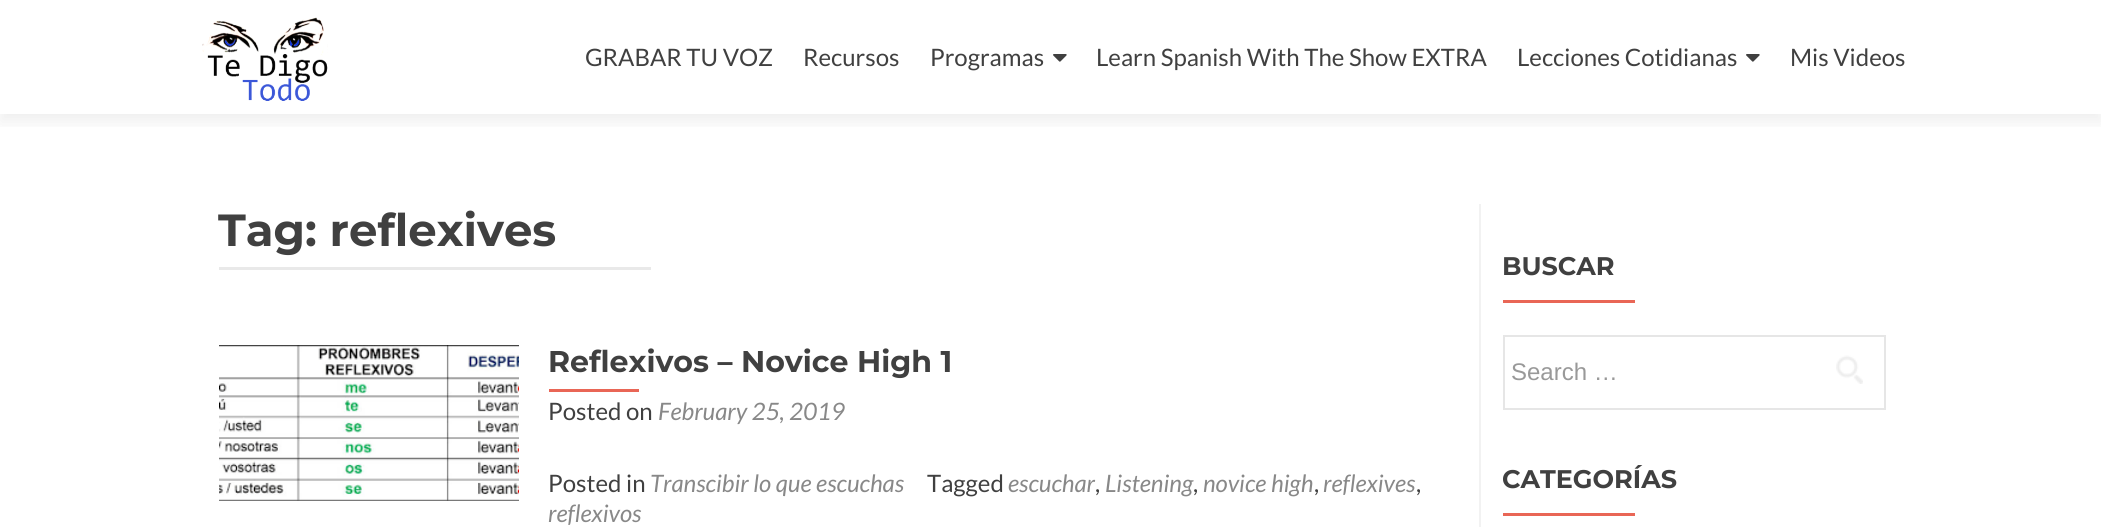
import math
import cairo

surface = cairo.ImageSurface(cairo.FORMAT_RGB24, 2101, 527)
ctx = cairo.Context(surface)
options = cairo.FontOptions()
options.set_hint_metrics(cairo.HINT_METRICS_OFF)
options.set_hint_style(cairo.HINT_STYLE_NONE)
ctx.set_font_options(options)
ctx.set_miter_limit(4)


def round_rect(x, y, w, h, r):
    ctx.new_sub_path()
    for i, (u, v) in enumerate([(x + w - r, y + h - r), (x + r, y + h - r), (x + r, y + r), (x + w - r, y + r)]):
        ctx.arc(u, v, r, i * math.pi / 2, (i + 1) * math.pi / 2)
    ctx.close_path()


def shadow(x, y, w, h, r, blur, alpha):
    ctx.push_group_with_content(cairo.CONTENT_ALPHA)
    ctx.set_operator(cairo.OPERATOR_SOURCE)
    for i in range(15, -16, -2):
        e = blur * i / 6
        if min(w, h) + 2 * e > 0:
            ctx.set_source_rgba(0, 0, 0, alpha * math.erfc((i - 1) / 8.5) / 2)
            round_rect(x - e, y - e, w + 2 * e, h + 2 * e, max(0, min(r + e + blur * .6, min(w, h) / 2 + e)))
            ctx.fill()
    ctx.mask(ctx.pop_group())


def picture(path, x, y, w, h):
    ctx.save()
    ctx.set_source_surface(cairo.ImageSurface.create_from_png(path), x, y)
    ctx.rectangle(x, y, w, h)
    ctx.fill()
    ctx.restore()


ctx.set_source_rgb(1, 1, 1)
ctx.paint()
ctx.save()
ctx.rectangle(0, 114, 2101, 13)
ctx.clip()
ctx.set_source_rgb(0.196, 0.196, 0.196)
shadow(0, 8, 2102, 114, 0, 8, 0.08)
ctx.restore()
picture("img1.png", 202, 17, 126, 84)
ctx.select_font_face("Lato")
ctx.set_font_size(24)
ctx.set_source_rgb(0.251, 0.251, 0.251)
ctx.move_to(585, 66)
ctx.show_text("GRABAR TU VOZ")
ctx.move_to(803, 66)
ctx.show_text("Recursos")
ctx.move_to(930, 66)
ctx.show_text("Programas")
picture("img2.png", 1053, 54, 14, 8)
ctx.move_to(1096, 66)
ctx.show_text("Learn Spanish With The Show EXTRA")
ctx.move_to(1517, 66)
ctx.show_text("Lecciones Cotidianas")
picture("img2.png", 1746, 54, 14, 8)
ctx.move_to(1790, 66)
ctx.show_text("Mis Videos")
ctx.select_font_face("Montserrat", cairo.FONT_SLANT_NORMAL, cairo.FONT_WEIGHT_BOLD)
ctx.set_font_size(45)
ctx.move_to(218, 246)
ctx.show_text("Tag: reflexives")
ctx.set_source_rgb(0.914, 0.914, 0.914)
ctx.rectangle(219, 267, 432, 3)
ctx.fill()
picture("img3.png", 219, 345, 300, 156)
ctx.set_font_size(30)
ctx.set_source_rgb(0.251, 0.251, 0.251)
ctx.move_to(548, 372)
ctx.show_text("Reflexivos – Novice High 1")
ctx.set_source_rgb(0.914, 0.4, 0.337)
ctx.rectangle(549, 389, 90, 3)
ctx.fill()
ctx.select_font_face("Lato")
ctx.set_font_size(24)
ctx.set_source_rgb(0.251, 0.251, 0.251)
ctx.move_to(548, 420)
ctx.show_text("Posted on")
ctx.select_font_face("Lato", cairo.FONT_SLANT_ITALIC)
ctx.set_source_rgb(0.533, 0.533, 0.533)
ctx.move_to(658, 420)
ctx.show_text("February 25, 2019")
ctx.select_font_face("Lato")
ctx.set_source_rgb(0.251, 0.251, 0.251)
ctx.move_to(548, 492)
ctx.show_text("Posted in")
ctx.select_font_face("Lato", cairo.FONT_SLANT_ITALIC)
ctx.set_source_rgb(0.533, 0.533, 0.533)
ctx.move_to(650, 492)
ctx.show_text("Transcibir lo que escuchas")
ctx.select_font_face("Lato")
ctx.set_source_rgb(0.251, 0.251, 0.251)
ctx.move_to(927, 492)
ctx.show_text("Tagged")
ctx.select_font_face("Lato", cairo.FONT_SLANT_ITALIC)
ctx.set_source_rgb(0.533, 0.533, 0.533)
ctx.move_to(1008, 492)
ctx.show_text("escuchar")
ctx.select_font_face("Lato")
ctx.set_source_rgb(0.251, 0.251, 0.251)
ctx.move_to(1095, 492)
ctx.show_text(",")
ctx.select_font_face("Lato", cairo.FONT_SLANT_ITALIC)
ctx.set_source_rgb(0.533, 0.533, 0.533)
ctx.move_to(1105, 492)
ctx.show_text("Listening")
ctx.select_font_face("Lato")
ctx.set_source_rgb(0.251, 0.251, 0.251)
ctx.move_to(1193, 492)
ctx.show_text(",")
ctx.select_font_face("Lato", cairo.FONT_SLANT_ITALIC)
ctx.set_source_rgb(0.533, 0.533, 0.533)
ctx.move_to(1203, 492)
ctx.show_text("novice high")
ctx.select_font_face("Lato")
ctx.set_source_rgb(0.251, 0.251, 0.251)
ctx.move_to(1314, 492)
ctx.show_text(",")
ctx.select_font_face("Lato", cairo.FONT_SLANT_ITALIC)
ctx.set_source_rgb(0.533, 0.533, 0.533)
ctx.move_to(1323, 492)
ctx.show_text("reflexives")
ctx.select_font_face("Lato")
ctx.set_source_rgb(0.251, 0.251, 0.251)
ctx.move_to(1416, 492)
ctx.show_text(",")
ctx.select_font_face("Lato", cairo.FONT_SLANT_ITALIC)
ctx.set_source_rgb(0.533, 0.533, 0.533)
ctx.move_to(548, 522)
ctx.show_text("reflexivos")
ctx.set_source_rgb(0.949, 0.949, 0.949)
ctx.rectangle(1479, 204, 2, 323)
ctx.fill()
ctx.select_font_face("Montserrat", cairo.FONT_SLANT_NORMAL, cairo.FONT_WEIGHT_BOLD)
ctx.set_font_size(25.5)
ctx.set_source_rgb(0.251, 0.251, 0.251)
ctx.move_to(1502, 275)
ctx.show_text("BUSCAR")
ctx.set_source_rgb(0.914, 0.4, 0.337)
ctx.rectangle(1503, 300, 132, 3)
ctx.fill()
ctx.rectangle(1504, 336, 381, 73)
ctx.set_source_rgb(0.902, 0.902, 0.902)
ctx.stroke()
ctx.select_font_face("Liberation Sans")
ctx.set_font_size(24)
ctx.set_source_rgb(0.6, 0.6, 0.6)
ctx.move_to(1511, 380)
ctx.show_text("Search …")
picture("img4.png", 1836, 355, 27, 29)
ctx.select_font_face("Montserrat", cairo.FONT_SLANT_NORMAL, cairo.FONT_WEIGHT_BOLD)
ctx.set_font_size(25.5)
ctx.set_source_rgb(0.251, 0.251, 0.251)
ctx.move_to(1502, 488)
ctx.show_text("CATEGORÍAS")
ctx.set_source_rgb(0.914, 0.4, 0.337)
ctx.rectangle(1503, 513, 132, 3)
ctx.fill()
surface.write_to_png("page.png")
